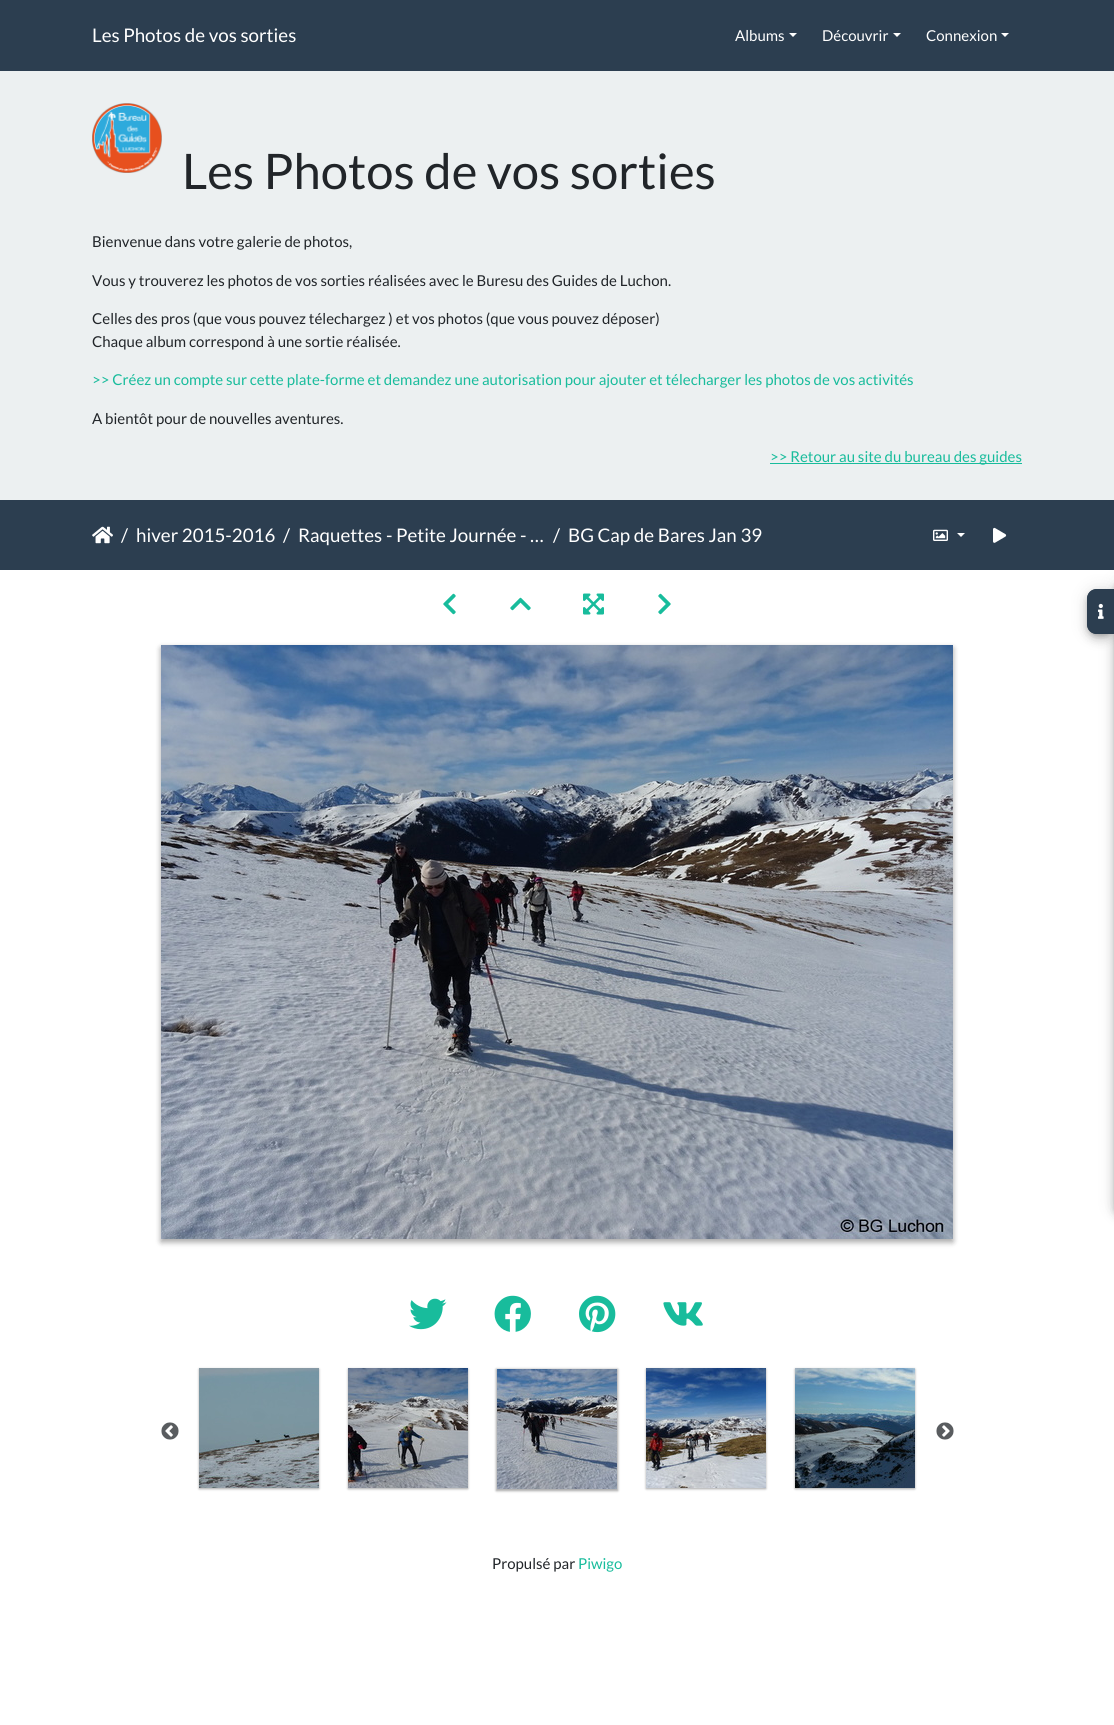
import math
import cairo

surface = cairo.ImageSurface(cairo.FORMAT_RGB24, 1114, 1725)
ctx = cairo.Context(surface)
options = cairo.FontOptions()
options.set_hint_metrics(cairo.HINT_METRICS_OFF)
options.set_hint_style(cairo.HINT_STYLE_NONE)
ctx.set_font_options(options)
ctx.set_miter_limit(4)


def round_rect(x, y, w, h, r):
    ctx.new_sub_path()
    for i, (u, v) in enumerate([(x + w - r, y + h - r), (x + r, y + h - r), (x + r, y + r), (x + w - r, y + r)]):
        ctx.arc(u, v, r, i * math.pi / 2, (i + 1) * math.pi / 2)
    ctx.close_path()


def shadow(x, y, w, h, r, blur, alpha):
    ctx.push_group_with_content(cairo.CONTENT_ALPHA)
    ctx.set_operator(cairo.OPERATOR_SOURCE)
    for i in range(15, -16, -2):
        e = blur * i / 6
        if min(w, h) + 2 * e > 0:
            ctx.set_source_rgba(0, 0, 0, alpha * math.erfc((i - 1) / 8.5) / 2)
            round_rect(x - e, y - e, w + 2 * e, h + 2 * e, max(0, min(r + e + blur * .6, min(w, h) / 2 + e)))
            ctx.fill()
    ctx.mask(ctx.pop_group())


def picture(path, x, y, w, h):
    ctx.save()
    ctx.set_source_surface(cairo.ImageSurface.create_from_png(path), x, y)
    ctx.rectangle(x, y, w, h)
    ctx.fill()
    ctx.restore()


ctx.set_source_rgb(1, 1, 1)
ctx.paint()
ctx.set_source_rgb(0.173, 0.243, 0.314)
ctx.rectangle(0, 0, 1114, 71)
ctx.fill()
ctx.select_font_face("Lato")
ctx.set_font_size(18.75)
ctx.set_source_rgb(1, 1, 1)
ctx.move_to(92, 42)
ctx.show_text("Les Photos de vos sorties")
ctx.set_font_size(15)
ctx.move_to(735, 41)
ctx.show_text("Albums")
ctx.new_path()
ctx.move_to(789, 33)
ctx.line_to(797, 33)
ctx.line_to(793, 37)
ctx.close_path()
ctx.fill()
ctx.move_to(822, 41)
ctx.show_text("Découvrir")
ctx.new_path()
ctx.move_to(893, 33)
ctx.line_to(901, 33)
ctx.line_to(897, 37)
ctx.close_path()
ctx.fill()
ctx.move_to(926, 41)
ctx.show_text("Connexion")
ctx.new_path()
ctx.move_to(1001, 33)
ctx.line_to(1009, 33)
ctx.line_to(1005, 37)
ctx.close_path()
ctx.fill()
ctx.set_source_rgb(0.925, 0.941, 0.945)
ctx.rectangle(0, 71, 1114, 429)
ctx.fill()
picture("img1.png", 92, 103, 70, 70)
ctx.set_font_size(49)
ctx.set_source_rgb(0.129, 0.145, 0.161)
ctx.move_to(182, 189)
ctx.show_text("Les Photos de vos sorties")
ctx.set_font_size(15)
ctx.move_to(92, 247)
ctx.show_text("Bienvenue dans votre galerie de photos,")
ctx.move_to(92, 286)
ctx.show_text("Vous y trouverez les photos de vos sorties réalisées avec le Buresu des Guides de Luchon.")
ctx.move_to(92, 324)
ctx.show_text("Celles des pros (que vous pouvez télechargez ) et vos photos (que vous pouvez déposer)")
ctx.move_to(92, 347)
ctx.show_text("Chaque album correspond à une sortie réalisée.")
ctx.set_source_rgb(0.094, 0.737, 0.612)
ctx.move_to(92, 385)
ctx.show_text(">> Créez un compte sur cette plate-forme et demandez une autorisation pour ajouter et télecharger les photos de vos activités")
ctx.set_source_rgb(0.129, 0.145, 0.161)
ctx.move_to(92, 424)
ctx.show_text("A bientôt pour de nouvelles aventures.")
ctx.set_source_rgb(0.094, 0.737, 0.612)
ctx.rectangle(770, 463, 252, 1)
ctx.fill()
ctx.move_to(770, 462)
ctx.show_text(">> Retour au site du bureau des guides")
ctx.set_source_rgb(0, 0, 0)
shadow(1114, 580, 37, 634, 10, 9, 0.12)
shadow(1114, 585, 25, 634, 10, 5, 0.14)
shadow(1087, 590, 27, 45, 10, 9, 0.12)
ctx.set_source_rgb(0.173, 0.243, 0.314)
ctx.rectangle(0, 500, 1114, 70)
ctx.fill()
picture("img2.png", 92, 526, 21, 18)
ctx.set_font_size(18.75)
ctx.set_source_rgb(1, 1, 1)
ctx.move_to(121, 542)
ctx.show_text("/")
ctx.move_to(136, 542)
ctx.show_text("hiver 2015-2016")
ctx.move_to(283, 542)
ctx.show_text("/")
ctx.move_to(298, 542)
ctx.show_text("Raquettes - Petite Journée - …")
ctx.move_to(553, 542)
ctx.show_text("/")
ctx.move_to(568, 542)
ctx.show_text("BG Cap de Bares Jan 39")
picture("img3.png", 933, 529, 15, 12)
ctx.new_path()
ctx.move_to(957, 533)
ctx.line_to(965, 533)
ctx.line_to(961, 537)
ctx.close_path()
ctx.fill()
picture("img4.png", 993, 527, 14, 16)
picture("img5.png", 443, 593, 13, 22)
picture("img6.png", 510, 597, 21, 14)
picture("img7.png", 583, 593, 21, 22)
picture("img8.png", 658, 593, 13, 22)
ctx.set_source_rgb(0, 0, 0)
shadow(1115, 583, 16, 632, 9, 2.5, 0.2)
shadow(1088, 593, 25, 43, 9, 2.5, 0.2)
shadow(1087, 595, 27, 45, 10, 5, 0.14)
ctx.set_source_rgb(0.173, 0.243, 0.314)
ctx.new_path()
ctx.move_to(1097, 589)
ctx.line_to(1114, 589)
ctx.line_to(1114, 634)
ctx.line_to(1097, 634)
ctx.curve_to(1091.5, 634, 1087, 629.5, 1087, 624)
ctx.line_to(1087, 599)
ctx.curve_to(1087, 593.5, 1091.5, 589, 1097, 589)
ctx.close_path()
ctx.fill()
ctx.set_fill_rule(cairo.FILL_RULE_EVEN_ODD)
ctx.new_path()
ctx.move_to(1097, 589)
ctx.line_to(1114, 589)
ctx.line_to(1114, 634)
ctx.line_to(1097, 634)
ctx.curve_to(1091, 634, 1087, 630, 1087, 624)
ctx.line_to(1087, 599)
ctx.curve_to(1087, 593, 1091, 589, 1097, 589)
ctx.close_path()
ctx.move_to(1097, 590)
ctx.line_to(1114, 590)
ctx.line_to(1114, 633)
ctx.line_to(1097, 633)
ctx.curve_to(1092, 633, 1088, 629, 1088, 624)
ctx.line_to(1088, 599)
ctx.curve_to(1088, 594, 1092, 590, 1097, 590)
ctx.close_path()
ctx.fill()
picture("img9.png", 1098, 603, 6, 16)
ctx.set_source_rgb(0, 0, 0)
shadow(161, 648, 792, 594, 0, 3, 0.23)
shadow(161, 648, 792, 594, 0, 3, 0.16)
picture("img10.png", 161, 645, 792, 594)
picture("img11.png", 409, 1298, 38, 32)
picture("img12.png", 494, 1295, 37, 37)
picture("img13.png", 579, 1295, 37, 38)
picture("img14.png", 663, 1302, 40, 24)
picture("img15.png", 161, 1422, 18, 18)
shadow(199, 1369, 120, 120, 0, 1.5, 0.12)
shadow(199, 1369, 120, 120, 0, 1, 0.24)
picture("img16.png", 199, 1368, 120, 120)
shadow(348, 1369, 120, 120, 0, 1.5, 0.12)
shadow(348, 1369, 120, 120, 0, 1, 0.24)
picture("img17.png", 348, 1368, 120, 120)
shadow(496, 1369, 122, 122, 0, 1.5, 0.12)
shadow(496, 1369, 122, 122, 0, 1, 0.24)
picture("img18.png", 497, 1369, 120, 120)
shadow(646, 1369, 120, 120, 0, 1.5, 0.12)
shadow(646, 1369, 120, 120, 0, 1, 0.24)
picture("img19.png", 646, 1368, 120, 120)
shadow(795, 1369, 120, 120, 0, 1.5, 0.12)
shadow(795, 1369, 120, 120, 0, 1, 0.24)
picture("img20.png", 795, 1368, 120, 120)
picture("img21.png", 936, 1422, 18, 18)
ctx.set_font_size(15)
ctx.set_source_rgb(0.129, 0.145, 0.161)
ctx.move_to(492, 1569)
ctx.show_text("Propulsé par")
ctx.set_source_rgb(0.094, 0.737, 0.612)
ctx.move_to(578, 1569)
ctx.show_text("Piwigo")
surface.write_to_png("page.png")
